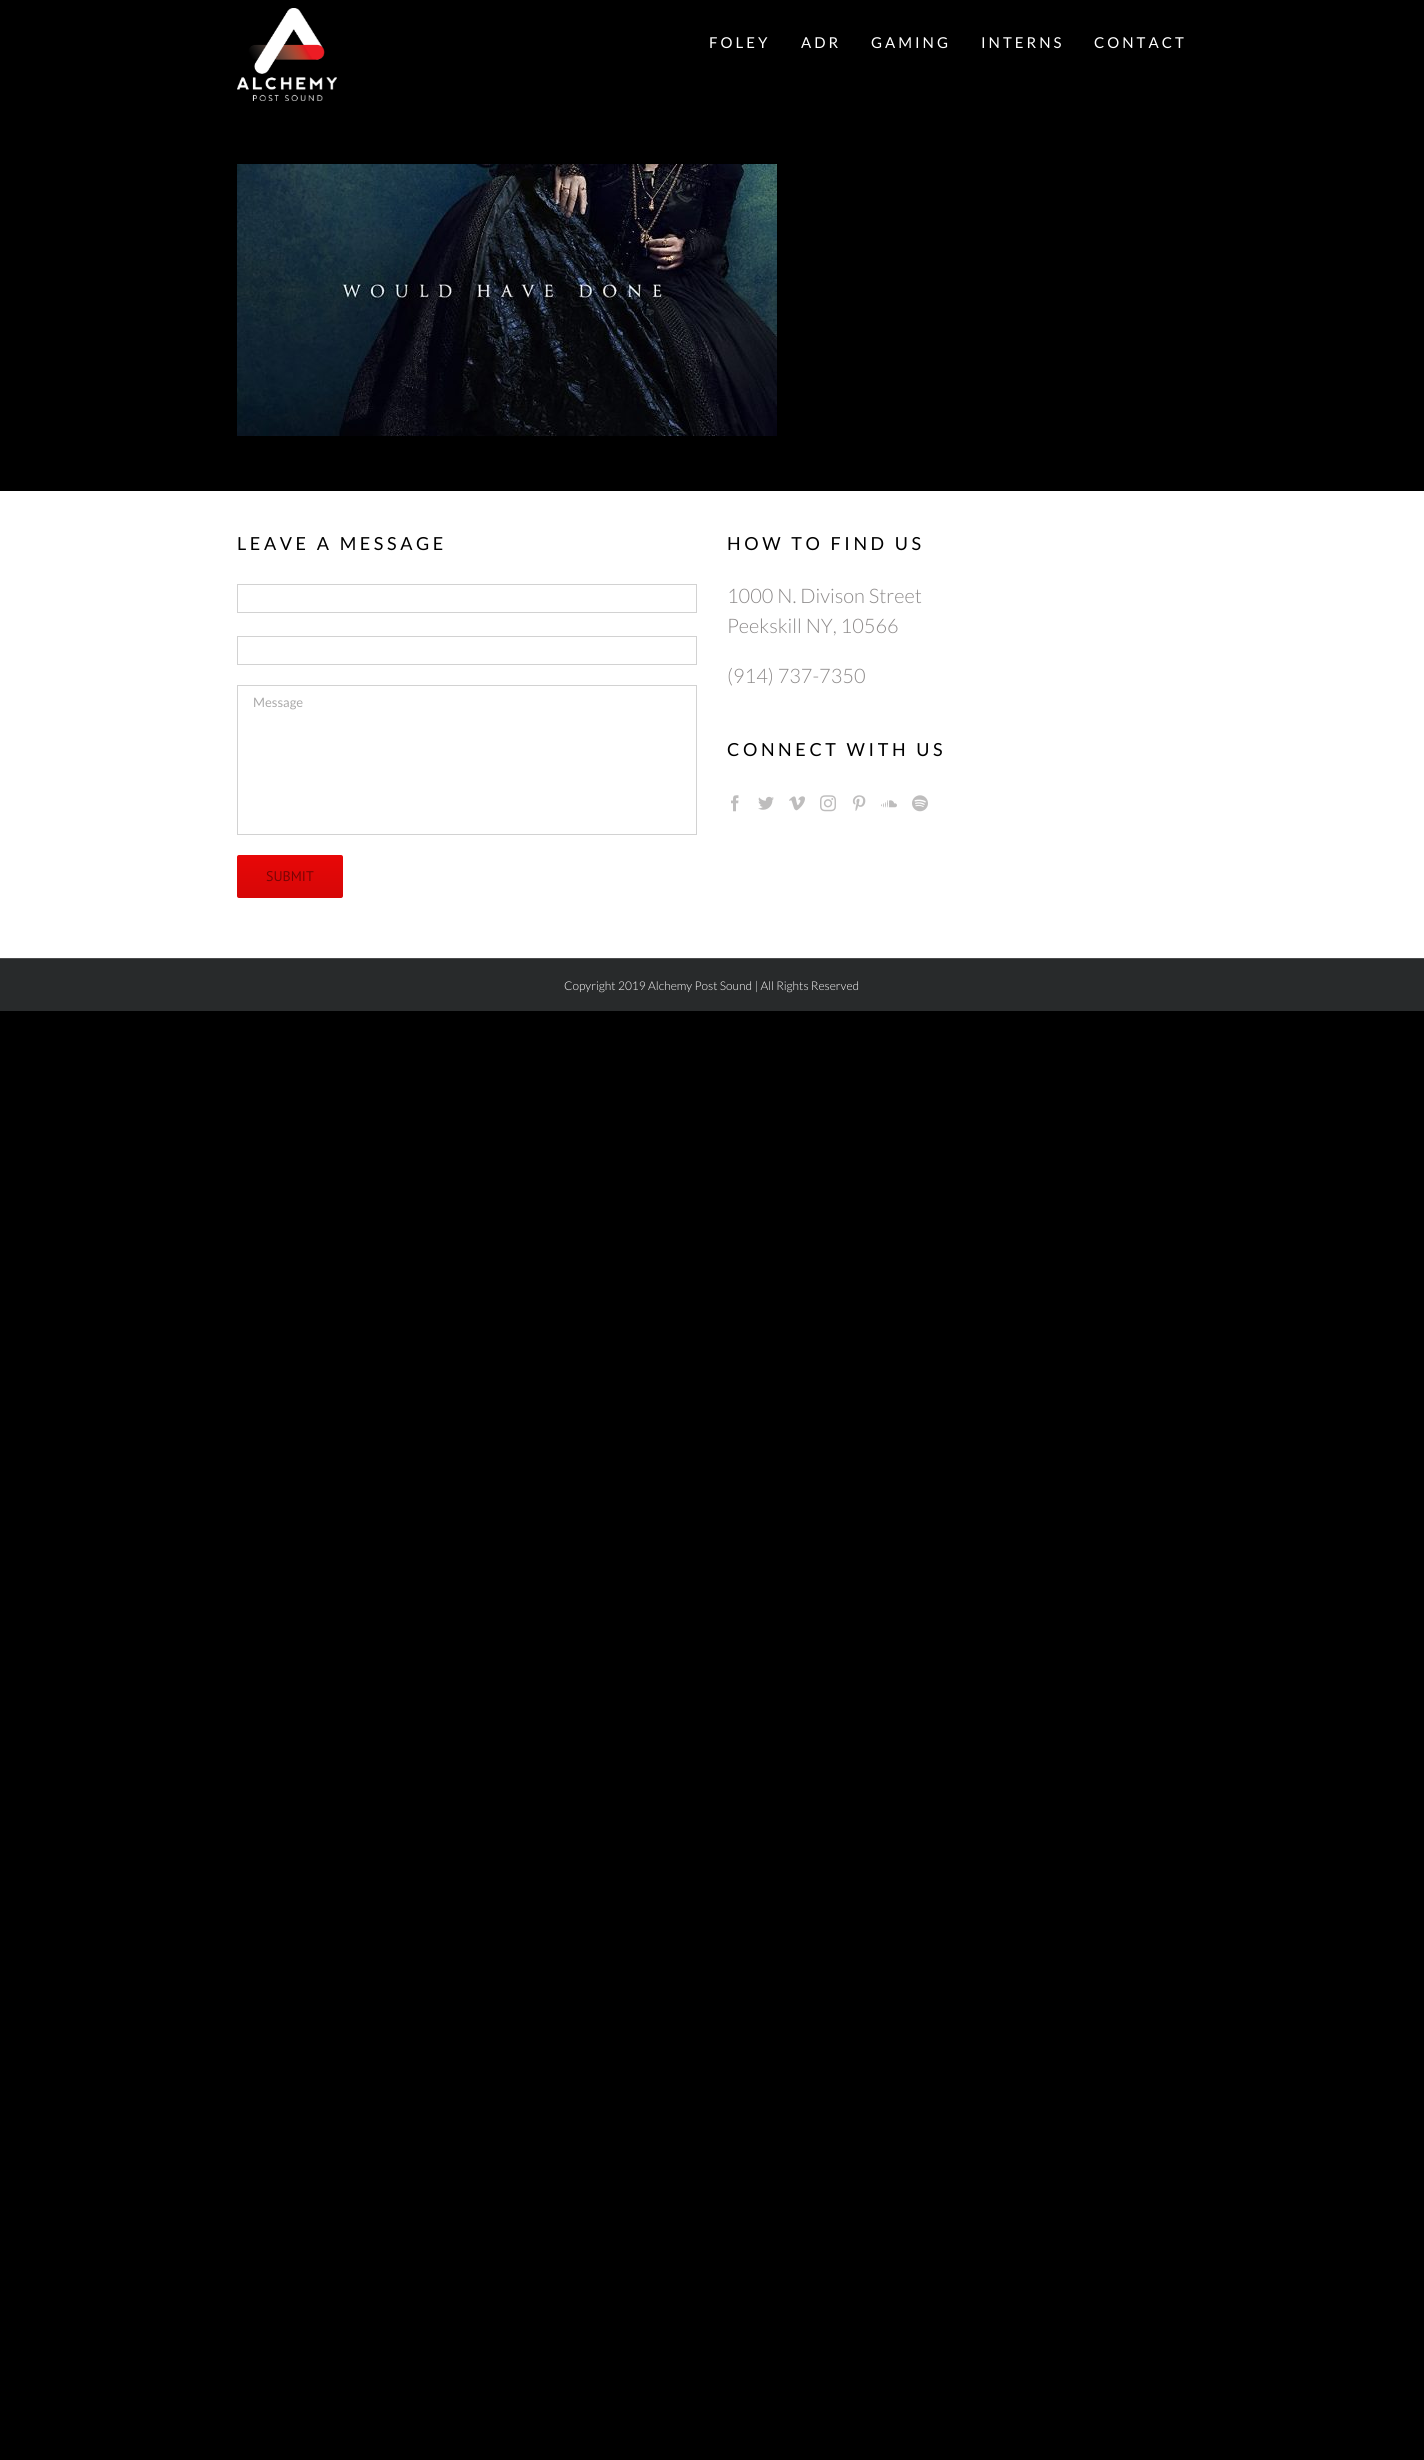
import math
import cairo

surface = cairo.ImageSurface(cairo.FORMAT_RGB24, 1424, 2460)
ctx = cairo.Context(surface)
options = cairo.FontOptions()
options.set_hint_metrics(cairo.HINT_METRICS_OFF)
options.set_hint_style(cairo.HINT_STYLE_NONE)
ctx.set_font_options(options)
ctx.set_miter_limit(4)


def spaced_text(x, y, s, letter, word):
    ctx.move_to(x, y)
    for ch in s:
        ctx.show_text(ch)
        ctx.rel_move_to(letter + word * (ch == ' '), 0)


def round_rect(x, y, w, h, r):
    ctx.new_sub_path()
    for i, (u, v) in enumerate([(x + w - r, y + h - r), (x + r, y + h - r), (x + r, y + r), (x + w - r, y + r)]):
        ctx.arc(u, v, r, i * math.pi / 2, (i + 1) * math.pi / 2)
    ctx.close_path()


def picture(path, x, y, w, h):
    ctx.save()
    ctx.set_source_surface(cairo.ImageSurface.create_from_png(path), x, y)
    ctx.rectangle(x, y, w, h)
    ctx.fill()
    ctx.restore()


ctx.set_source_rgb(0, 0, 0)
ctx.paint()
picture("img1.png", 237, 8, 100, 93)
ctx.select_font_face("Lato")
ctx.set_font_size(15)
ctx.set_source_rgb(1, 1, 1)
spaced_text(709, 48, "FOLEY", 3, 0)
spaced_text(801, 48, "ADR", 3, 0)
spaced_text(871, 48, "GAMING", 3, 0)
spaced_text(981, 48, "INTERNS", 3, 0)
spaced_text(1094, 48, "CONTACT", 3, 0)
picture("img2.png", 237, 164, 540, 272)
ctx.rectangle(0, 491, 1424, 467)
ctx.fill()
ctx.set_font_size(18)
ctx.set_source_rgb(0, 0, 0)
spaced_text(237, 550, "LEAVE A MESSAGE", 3.6, 0)
ctx.rectangle(237.5, 584.5, 459, 28)
ctx.set_source_rgb(0.824, 0.824, 0.824)
ctx.set_line_width(1)
ctx.stroke()
ctx.rectangle(237.5, 636.5, 459, 28)
ctx.stroke()
ctx.rectangle(237.5, 685.5, 459, 149)
ctx.stroke()
ctx.set_font_size(13)
ctx.set_source_rgb(0.667, 0.663, 0.663)
ctx.move_to(253, 707)
ctx.show_text("Message")
gradient = cairo.LinearGradient(290, 855, 290, 898)
gradient.add_color_stop_rgba(0, 0.91, 0.027, 0.027, 1)
gradient.add_color_stop_rgba(1, 0.839, 0.027, 0.027, 1)
ctx.set_source(gradient)
round_rect(237, 855, 106, 43, 2)
ctx.fill()
ctx.select_font_face("PT Sans")
ctx.set_font_size(14)
ctx.set_source_rgb(0.471, 0.016, 0.016)
ctx.move_to(266, 881)
ctx.show_text("SUBMIT")
ctx.select_font_face("Lato")
ctx.set_font_size(18)
ctx.set_source_rgb(0, 0, 0)
spaced_text(727, 550, "HOW TO FIND US", 3.6, 0)
ctx.select_font_face("Lato Light")
ctx.set_font_size(20)
ctx.set_source_rgb(0.549, 0.537, 0.537)
ctx.move_to(727, 603)
ctx.show_text("1000 N. Divison Street")
ctx.move_to(727, 633)
ctx.show_text("Peekskill NY, 10566")
ctx.move_to(727, 683)
ctx.show_text("(914) 737-7350")
ctx.select_font_face("Lato")
ctx.set_font_size(18)
ctx.set_source_rgb(0, 0, 0)
spaced_text(727, 756, "CONNECT WITH US", 3.6, 0)
picture("img3.png", 731, 795, 8, 17)
picture("img4.png", 758, 796, 16, 14)
picture("img5.png", 789, 796, 16, 15)
picture("img6.png", 820, 795, 16, 17)
picture("img7.png", 852, 795, 14, 16)
picture("img8.png", 881, 800, 16, 8)
picture("img9.png", 912, 795, 16, 17)
ctx.set_source_rgb(0.157, 0.165, 0.169)
ctx.rectangle(0, 959, 1424, 52)
ctx.fill()
ctx.set_source_rgb(0.294, 0.298, 0.302)
ctx.rectangle(0, 958, 1424, 1)
ctx.fill()
ctx.select_font_face("Lato Light")
ctx.set_font_size(12)
ctx.set_source_rgb(1, 1, 1)
ctx.move_to(564, 990)
ctx.show_text("Copyright 2019 Alchemy Post Sound | All Rights Reserved")
surface.write_to_png("page.png")
